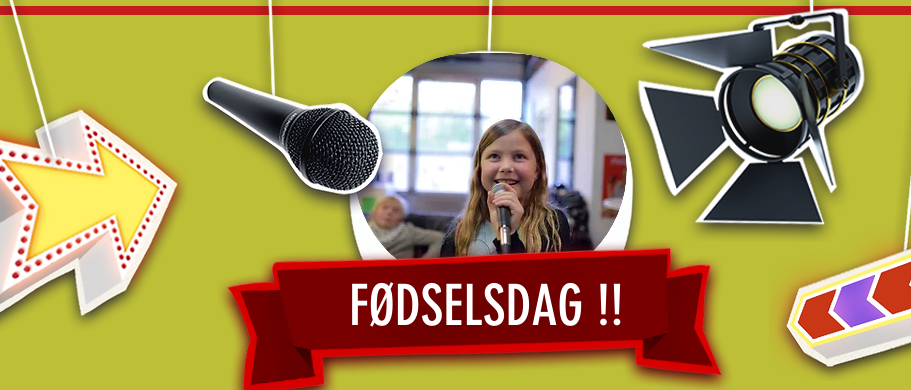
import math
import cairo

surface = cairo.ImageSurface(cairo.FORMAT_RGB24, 911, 390)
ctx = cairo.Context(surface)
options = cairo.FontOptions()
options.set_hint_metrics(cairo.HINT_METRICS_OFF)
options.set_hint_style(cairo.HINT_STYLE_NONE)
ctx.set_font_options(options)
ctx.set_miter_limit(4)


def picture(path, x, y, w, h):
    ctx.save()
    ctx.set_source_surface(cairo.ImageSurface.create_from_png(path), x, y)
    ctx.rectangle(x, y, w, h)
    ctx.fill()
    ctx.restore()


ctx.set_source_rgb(0.78, 0.102, 0.102)
ctx.paint()
ctx.set_source_rgb(0.741, 0.749, 0.216)
ctx.rectangle(0, 0, 911, 6)
ctx.fill()
ctx.rectangle(0, 15, 911, 375)
ctx.fill()
picture("img1.png", 0, 0, 188, 331)
picture("img3.png", 339, 0, 305, 261)
picture("img5.png", 356, 53, 271, 208)
picture("img2.png", 191, 0, 203, 214)
picture("img6.png", 769, 70, 142, 311)
picture("img7.png", 217, 240, 516, 150)
picture("img4.png", 627, 0, 250, 242)
ctx.select_font_face("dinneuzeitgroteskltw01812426")
ctx.set_font_size(56)
ctx.set_source_rgb(1, 1, 1)
ctx.move_to(349, 325)
ctx.show_text("FØDSELSDAG !!")
surface.write_to_png("page.png")
